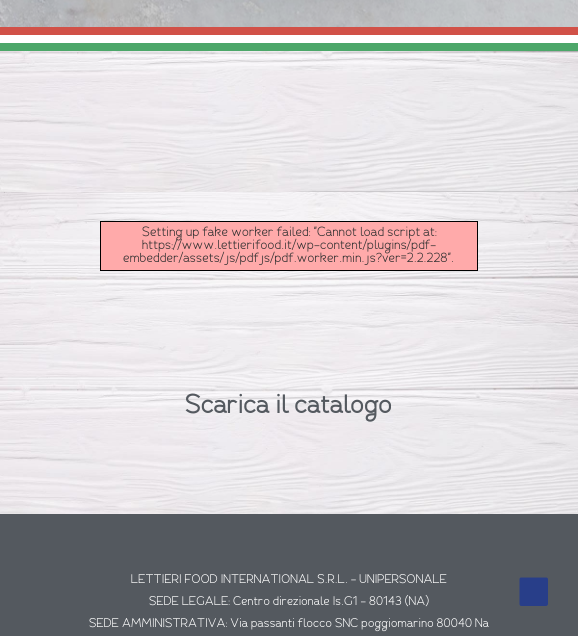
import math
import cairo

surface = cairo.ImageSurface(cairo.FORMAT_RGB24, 578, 636)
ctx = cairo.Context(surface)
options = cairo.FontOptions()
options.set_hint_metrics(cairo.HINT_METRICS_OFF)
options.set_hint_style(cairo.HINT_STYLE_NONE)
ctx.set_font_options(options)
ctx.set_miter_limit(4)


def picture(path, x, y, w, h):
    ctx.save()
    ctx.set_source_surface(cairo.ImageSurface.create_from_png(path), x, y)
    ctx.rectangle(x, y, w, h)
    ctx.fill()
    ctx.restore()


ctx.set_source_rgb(1, 1, 1)
ctx.paint()
picture("img1.png", 0, 51, 578, 463)
picture("img2.png", 0, 0, 578, 27)
ctx.set_source_rgb(0.82, 0.318, 0.282)
ctx.rectangle(0, 27, 578, 8)
ctx.fill()
ctx.set_source_rgb(0.302, 0.655, 0.416)
ctx.rectangle(0, 43, 578, 8)
ctx.fill()
ctx.rectangle(100.5, 221.5, 377, 49)
ctx.set_source_rgb(0, 0, 0)
ctx.set_line_width(1)
ctx.stroke()
ctx.set_source_rgb(1, 0.667, 0.667)
ctx.rectangle(101, 222, 376, 48)
ctx.fill()
ctx.select_font_face("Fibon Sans")
ctx.set_font_size(12.75)
ctx.set_source_rgb(0.188, 0.188, 0.188)
ctx.move_to(142, 236)
ctx.show_text("Setting up fake worker failed: \"Cannot load script at:")
ctx.move_to(142, 249)
ctx.show_text("https://www.lettierifood.it/wp-content/plugins/pdf-")
ctx.move_to(123, 262)
ctx.show_text("embedder/assets/js/pdfjs/pdf.worker.min.js?ver=2.2.228\".")
ctx.select_font_face("Fibon Sans", cairo.FONT_SLANT_NORMAL, cairo.FONT_WEIGHT_BOLD)
ctx.set_font_size(25)
ctx.set_source_rgb(0.329, 0.349, 0.373)
ctx.move_to(185, 413)
ctx.show_text("Scarica il catalogo")
ctx.rectangle(0, 514, 578, 122)
ctx.fill()
ctx.select_font_face("Fibon Sans")
ctx.set_font_size(12)
ctx.set_source_rgb(1, 1, 1)
ctx.move_to(131, 583)
ctx.show_text("LETTIERI FOOD INTERNATIONAL S.R.L. – UNIPERSONALE")
ctx.move_to(149, 605)
ctx.show_text("SEDE LEGALE: Centro direzionale Is.G1 – 80143 (NA)")
ctx.move_to(89, 627)
ctx.show_text("SEDE AMMINISTRATIVA: Via passanti flocco SNC poggiomarino 80040 Na")
ctx.set_source_rgb(0.157, 0.243, 0.537)
ctx.new_path()
ctx.move_to(546, 606)
ctx.line_to(521.5, 606)
ctx.curve_to(520, 606, 519.5, 605, 519.5, 604)
ctx.line_to(519.5, 579.5)
ctx.curve_to(519.5, 578, 520, 577.5, 521.5, 577.5)
ctx.line_to(546, 577.5)
ctx.curve_to(547, 577.5, 548, 578, 548, 579.5)
ctx.line_to(548, 604)
ctx.curve_to(548, 605, 547, 606, 546, 606)
ctx.close_path()
ctx.fill()
surface.write_to_png("page.png")
